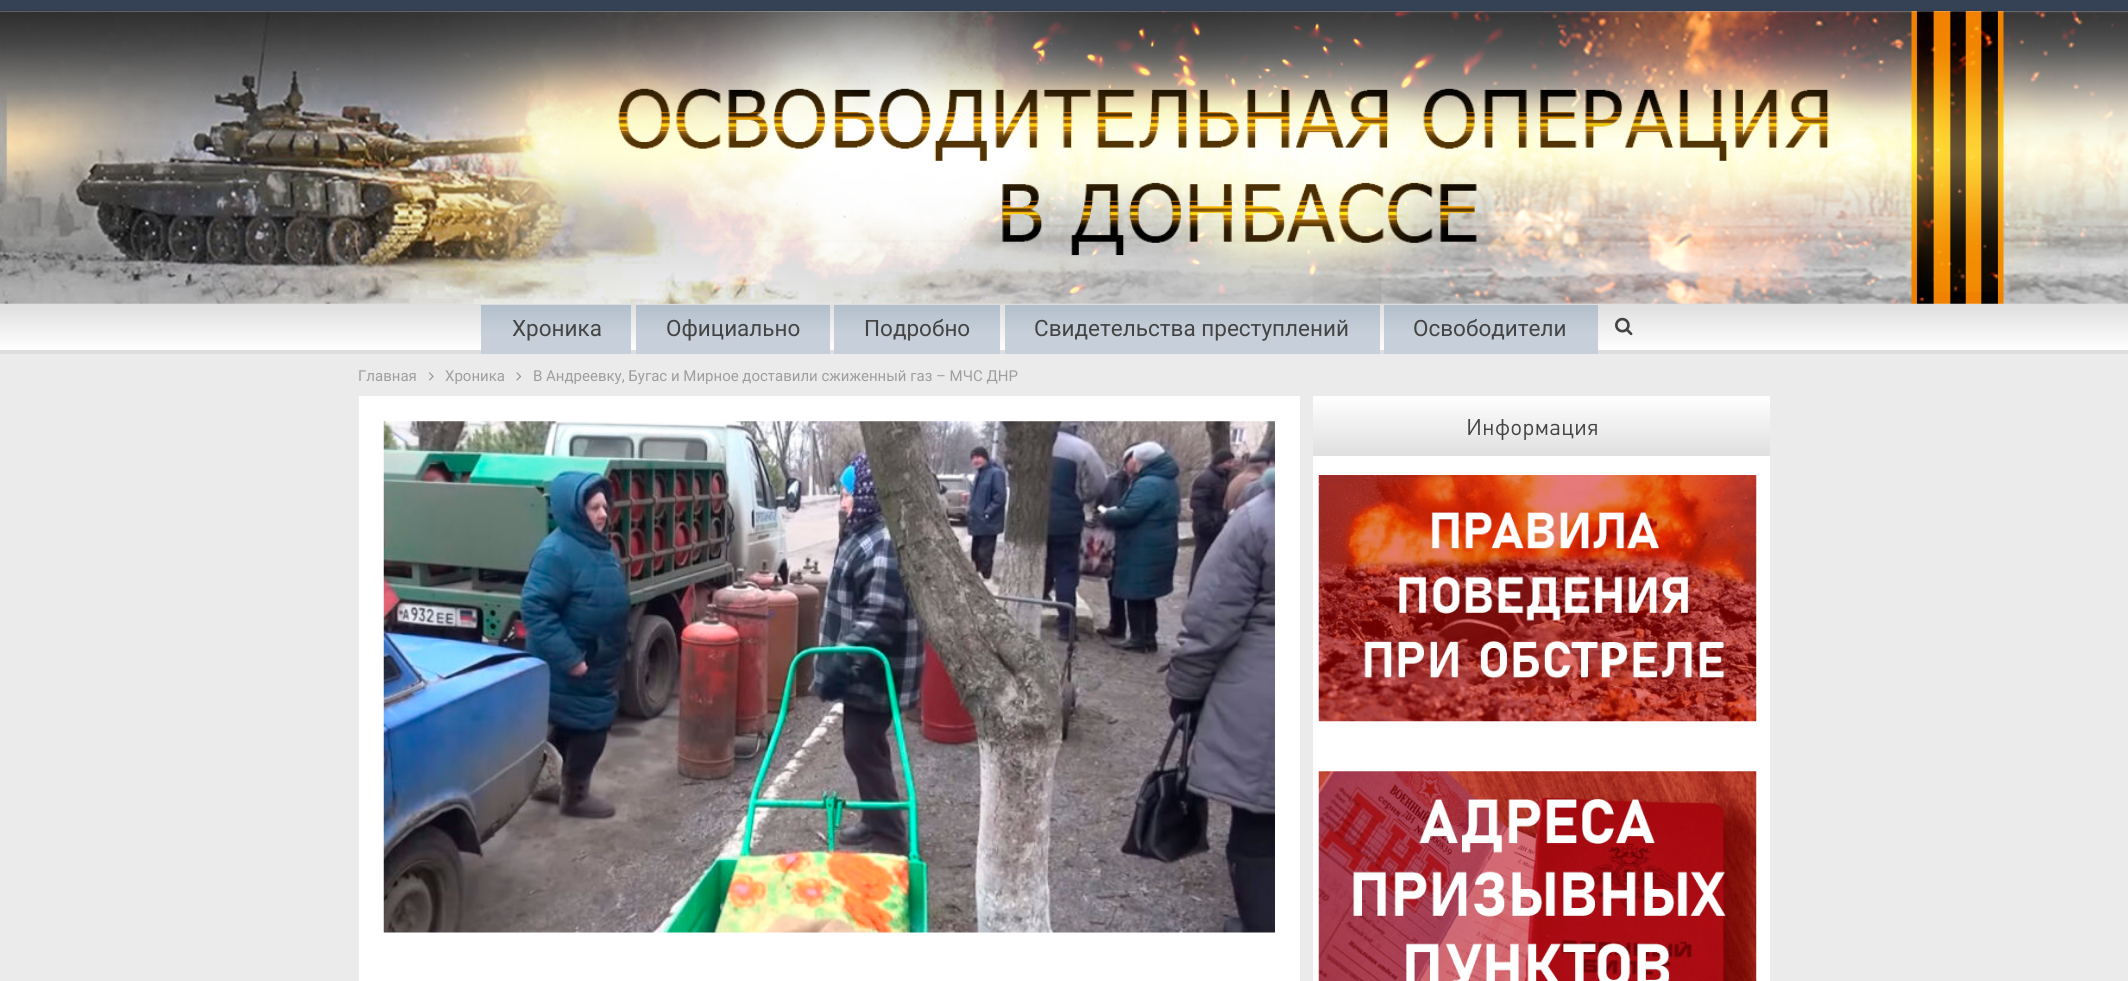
import math
import cairo

surface = cairo.ImageSurface(cairo.FORMAT_RGB24, 2128, 981)
ctx = cairo.Context(surface)
options = cairo.FontOptions()
options.set_hint_metrics(cairo.HINT_METRICS_OFF)
options.set_hint_style(cairo.HINT_STYLE_NONE)
ctx.set_font_options(options)
ctx.set_miter_limit(4)


def picture(path, x, y, w, h):
    ctx.save()
    ctx.set_source_surface(cairo.ImageSurface.create_from_png(path), x, y)
    ctx.rectangle(x, y, w, h)
    ctx.fill()
    ctx.restore()


ctx.set_source_rgb(0.918, 0.918, 0.918)
ctx.paint()
ctx.set_source_rgb(0.208, 0.259, 0.337)
ctx.rectangle(0, 0, 2128, 10)
ctx.fill()
ctx.set_source_rgb(0.192, 0.239, 0.314)
ctx.rectangle(0, 10, 2128, 1)
ctx.fill()
picture("img1.png", 0, 11, 2128, 293)
gradient = cairo.LinearGradient(1064, 305, 1064, 350)
gradient.add_color_stop_rgba(0.06, 0.882, 0.882, 0.882, 1)
gradient.add_color_stop_rgba(1, 1, 1, 1, 1)
ctx.set_source(gradient)
ctx.rectangle(0, 305, 2128, 45)
ctx.fill()
ctx.set_source_rgb(0.871, 0.871, 0.871)
ctx.rectangle(0, 304, 2128, 1)
ctx.fill()
ctx.rectangle(0, 350, 2128, 4)
ctx.fill()
gradient = cairo.LinearGradient(556, 305, 556, 354)
gradient.add_color_stop_rgba(0, 0.702, 0.749, 0.8, 1)
gradient.add_color_stop_rgba(0.59, 0.78, 0.816, 0.855, 1)
ctx.set_source(gradient)
ctx.rectangle(481, 305, 150, 49)
ctx.fill()
ctx.select_font_face("Roboto")
ctx.set_font_size(22.5)
ctx.set_source_rgb(0.267, 0.267, 0.267)
ctx.move_to(512, 336)
ctx.show_text("Хроника")
gradient = cairo.LinearGradient(733, 305, 733, 354)
gradient.add_color_stop_rgba(0, 0.702, 0.749, 0.8, 1)
gradient.add_color_stop_rgba(0.59, 0.78, 0.816, 0.855, 1)
ctx.set_source(gradient)
ctx.rectangle(636, 305, 194, 49)
ctx.fill()
ctx.set_source_rgb(0.267, 0.267, 0.267)
ctx.move_to(666, 336)
ctx.show_text("Официально")
gradient = cairo.LinearGradient(917, 305, 917, 354)
gradient.add_color_stop_rgba(0, 0.702, 0.749, 0.8, 1)
gradient.add_color_stop_rgba(0.59, 0.78, 0.816, 0.855, 1)
ctx.set_source(gradient)
ctx.rectangle(834, 305, 166, 49)
ctx.fill()
ctx.set_source_rgb(0.267, 0.267, 0.267)
ctx.move_to(864, 336)
ctx.show_text("Подробно")
gradient = cairo.LinearGradient(1193, 305, 1193, 354)
gradient.add_color_stop_rgba(0, 0.702, 0.749, 0.8, 1)
gradient.add_color_stop_rgba(0.59, 0.78, 0.816, 0.855, 1)
ctx.set_source(gradient)
ctx.rectangle(1005, 305, 375, 49)
ctx.fill()
ctx.set_source_rgb(0.267, 0.267, 0.267)
ctx.move_to(1034, 336)
ctx.show_text("Свидетельства преступлений")
gradient = cairo.LinearGradient(1491, 305, 1491, 354)
gradient.add_color_stop_rgba(0, 0.702, 0.749, 0.8, 1)
gradient.add_color_stop_rgba(0.59, 0.78, 0.816, 0.855, 1)
ctx.set_source(gradient)
ctx.rectangle(1384, 305, 214, 49)
ctx.fill()
ctx.set_source_rgb(0.267, 0.267, 0.267)
ctx.move_to(1413, 336)
ctx.show_text("Освободители")
picture("img2.png", 1615, 317, 18, 19)
ctx.set_font_size(15)
ctx.set_source_rgb(0.62, 0.62, 0.62)
ctx.move_to(358, 381)
ctx.show_text("Главная")
picture("img3.png", 429, 372, 5, 9)
ctx.move_to(445, 381)
ctx.show_text("Хроника")
picture("img4.png", 516, 372, 6, 9)
ctx.move_to(533, 381)
ctx.show_text("В Андреевку, Бугас и Мирное доставили сжиженный газ – МЧС ДНР")
ctx.set_source_rgb(1, 1, 1)
ctx.rectangle(359, 396, 941, 585)
ctx.fill()
picture("img5.png", 383, 421, 892, 512)
ctx.rectangle(1313, 456, 457, 525)
ctx.fill()
gradient = cairo.LinearGradient(1541, 396, 1541, 456)
gradient.add_color_stop_rgba(0, 1, 1, 1, 1)
gradient.add_color_stop_rgba(0.94, 0.882, 0.882, 0.882, 1)
ctx.set_source(gradient)
ctx.rectangle(1313, 396, 457, 60)
ctx.fill()
ctx.select_font_face("DIN")
ctx.set_font_size(22.5)
ctx.set_source_rgb(0.267, 0.267, 0.267)
ctx.move_to(1466, 435)
ctx.show_text("Информация")
picture("img6.png", 1318, 475, 439, 247)
picture("img7.png", 1318, 771, 439, 210)
surface.write_to_png("page.png")
